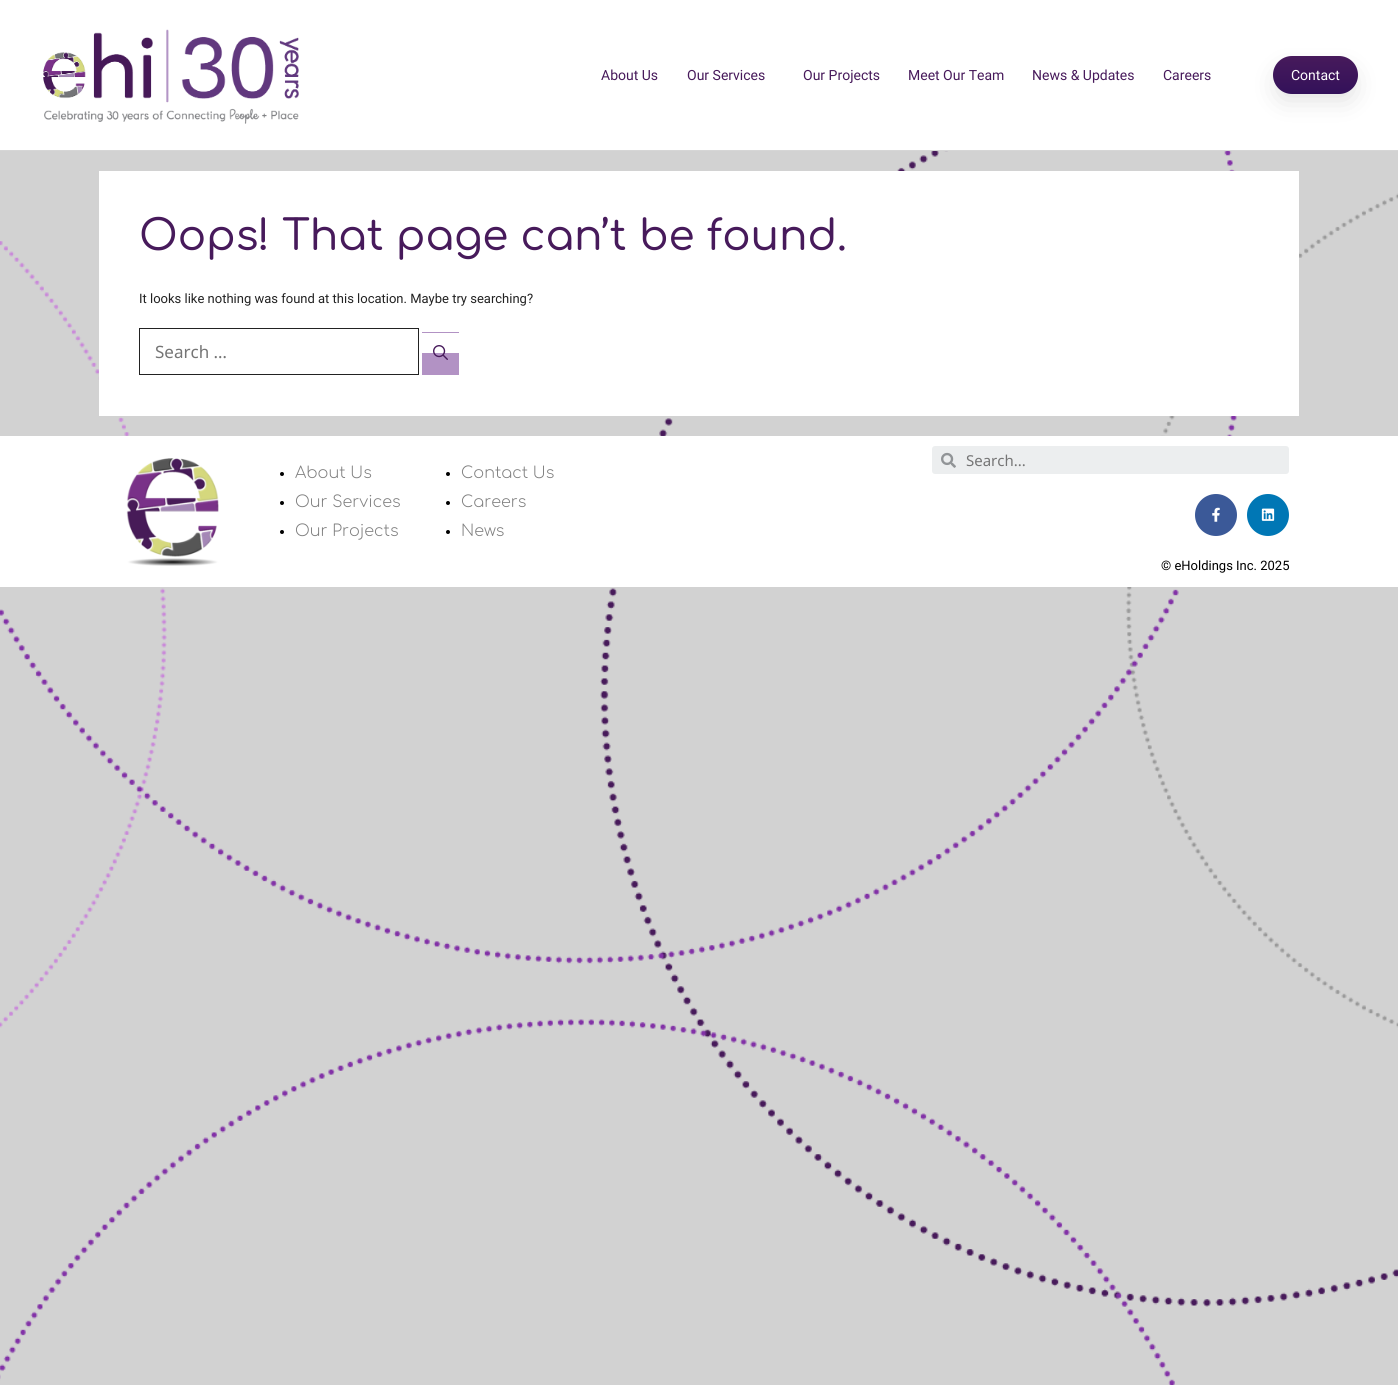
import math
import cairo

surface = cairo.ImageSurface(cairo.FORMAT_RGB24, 1398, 1385)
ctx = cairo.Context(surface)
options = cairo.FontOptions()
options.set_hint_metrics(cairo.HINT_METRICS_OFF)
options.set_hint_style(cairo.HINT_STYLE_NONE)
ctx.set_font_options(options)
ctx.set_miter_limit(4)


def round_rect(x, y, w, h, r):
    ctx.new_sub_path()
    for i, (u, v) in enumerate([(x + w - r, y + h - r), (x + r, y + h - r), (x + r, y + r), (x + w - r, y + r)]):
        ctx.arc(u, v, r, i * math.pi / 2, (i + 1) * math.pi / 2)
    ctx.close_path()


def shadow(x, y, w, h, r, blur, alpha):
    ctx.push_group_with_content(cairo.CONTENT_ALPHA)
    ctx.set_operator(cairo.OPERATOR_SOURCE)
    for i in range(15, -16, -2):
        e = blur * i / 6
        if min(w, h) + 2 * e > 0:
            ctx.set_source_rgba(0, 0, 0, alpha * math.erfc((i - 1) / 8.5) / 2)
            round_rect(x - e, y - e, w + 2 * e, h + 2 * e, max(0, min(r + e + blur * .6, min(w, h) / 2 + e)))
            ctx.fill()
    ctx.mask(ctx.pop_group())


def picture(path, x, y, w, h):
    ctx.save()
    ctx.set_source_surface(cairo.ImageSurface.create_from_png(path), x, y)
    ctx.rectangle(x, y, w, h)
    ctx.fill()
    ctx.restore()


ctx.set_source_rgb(1, 1, 1)
ctx.paint()
picture("img1.png", 0, 151, 1398, 1234)
ctx.set_source_rgb(0.839, 0.839, 0.839)
ctx.rectangle(0, 150, 1398, 1)
ctx.fill()
picture("img2.png", 43, 29, 256, 95)
ctx.select_font_face("Roboto")
ctx.set_font_size(14)
ctx.set_source_rgb(0.278, 0.102, 0.357)
ctx.move_to(601, 80)
ctx.show_text("About Us")
ctx.move_to(687, 80)
ctx.show_text("Our Services")
ctx.move_to(803, 80)
ctx.show_text("Our Projects")
ctx.move_to(908, 80)
ctx.show_text("Meet Our Team")
ctx.move_to(1032, 80)
ctx.show_text("News & Updates")
ctx.move_to(1163, 80)
ctx.show_text("Careers")
ctx.set_source_rgb(0, 0, 0)
shadow(1282, 75, 67, 20, 10, 15, 0.16)
gradient = cairo.LinearGradient(1316, 56, 1316, 94)
gradient.add_color_stop_rgba(0, 0.278, 0.102, 0.357, 1)
gradient.add_color_stop_rgba(1, 0.2, 0.067, 0.353, 1)
ctx.set_source(gradient)
round_rect(1273, 56, 85, 38, 19)
ctx.fill()
ctx.set_source_rgb(1, 1, 1)
ctx.move_to(1291, 80)
ctx.show_text("Contact")
ctx.rectangle(99, 171, 1200, 245)
ctx.fill()
ctx.select_font_face("Comfortaa Medium")
ctx.set_font_size(42)
ctx.set_source_rgb(0.278, 0.102, 0.357)
ctx.move_to(139, 250)
ctx.show_text("Oops! That page can’t be found.")
ctx.select_font_face("Roboto")
ctx.set_font_size(13)
ctx.set_source_rgb(0.133, 0.133, 0.133)
ctx.move_to(139, 303)
ctx.show_text("It looks like nothing was found at this location. Maybe try searching?")
ctx.rectangle(139.5, 328.5, 279, 46)
ctx.set_line_width(1)
ctx.stroke()
ctx.select_font_face("Noto Sans")
ctx.set_font_size(17)
ctx.set_source_rgb(0.459, 0.459, 0.459)
ctx.move_to(155, 358)
ctx.show_text("Search …")
ctx.set_source_rgb(0.698, 0.573, 0.769)
ctx.rectangle(422, 332, 37, 1)
ctx.fill()
ctx.rectangle(422, 353, 37, 22)
ctx.fill()
picture("img3.png", 433, 345, 15, 15)
ctx.set_source_rgb(1, 1, 1)
ctx.rectangle(0, 436, 1398, 151)
ctx.fill()
picture("img4.png", 126, 458, 93, 108)
ctx.set_source_rgb(0, 0, 0)
ctx.arc(282, 474, 2, 0, 2 * math.pi)
ctx.fill()
ctx.select_font_face("Comfortaa Light")
ctx.set_font_size(16)
ctx.set_source_rgb(0.502, 0.502, 0.502)
ctx.move_to(295, 478)
ctx.show_text("About Us")
ctx.set_source_rgb(0, 0, 0)
ctx.new_path()
ctx.arc(282, 503, 2, 0, 2 * math.pi)
ctx.fill()
ctx.set_source_rgb(0.502, 0.502, 0.502)
ctx.move_to(295, 507)
ctx.show_text("Our Services")
ctx.set_source_rgb(0, 0, 0)
ctx.new_path()
ctx.arc(282, 532, 2, 0, 2 * math.pi)
ctx.fill()
ctx.set_source_rgb(0.502, 0.502, 0.502)
ctx.move_to(295, 536)
ctx.show_text("Our Projects")
ctx.set_source_rgb(0, 0, 0)
ctx.new_path()
ctx.arc(448, 474, 2, 0, 2 * math.pi)
ctx.fill()
ctx.set_source_rgb(0.502, 0.502, 0.502)
ctx.move_to(461, 478)
ctx.show_text("Contact Us")
ctx.set_source_rgb(0, 0, 0)
ctx.new_path()
ctx.arc(448, 503, 2, 0, 2 * math.pi)
ctx.fill()
ctx.set_source_rgb(0.502, 0.502, 0.502)
ctx.move_to(461, 507)
ctx.show_text("Careers")
ctx.set_source_rgb(0, 0, 0)
ctx.new_path()
ctx.arc(448, 532, 2, 0, 2 * math.pi)
ctx.fill()
ctx.set_source_rgb(0.502, 0.502, 0.502)
ctx.move_to(461, 536)
ctx.show_text("News")
ctx.set_source_rgb(0.925, 0.933, 0.937)
round_rect(932, 446, 357, 28, 3)
ctx.fill()
picture("img5.png", 941, 452, 15, 16)
ctx.select_font_face("Noto Sans")
ctx.set_font_size(15)
ctx.set_source_rgb(0.459, 0.459, 0.459)
ctx.move_to(966, 466)
ctx.show_text("Search...")
ctx.set_source_rgb(0.231, 0.349, 0.596)
ctx.new_path()
ctx.arc(1216, 515, 21, 0, 2 * math.pi)
ctx.fill()
picture("img6.png", 1212, 507, 8, 15)
ctx.set_source_rgb(0, 0.467, 0.71)
ctx.arc(1268, 515, 21, 0, 2 * math.pi)
ctx.fill()
picture("img7.png", 1261, 508, 14, 13)
ctx.select_font_face("Roboto")
ctx.set_font_size(13)
ctx.set_source_rgb(0, 0, 0)
ctx.move_to(1161, 570)
ctx.show_text("© eHoldings Inc. 2025")
surface.write_to_png("page.png")
